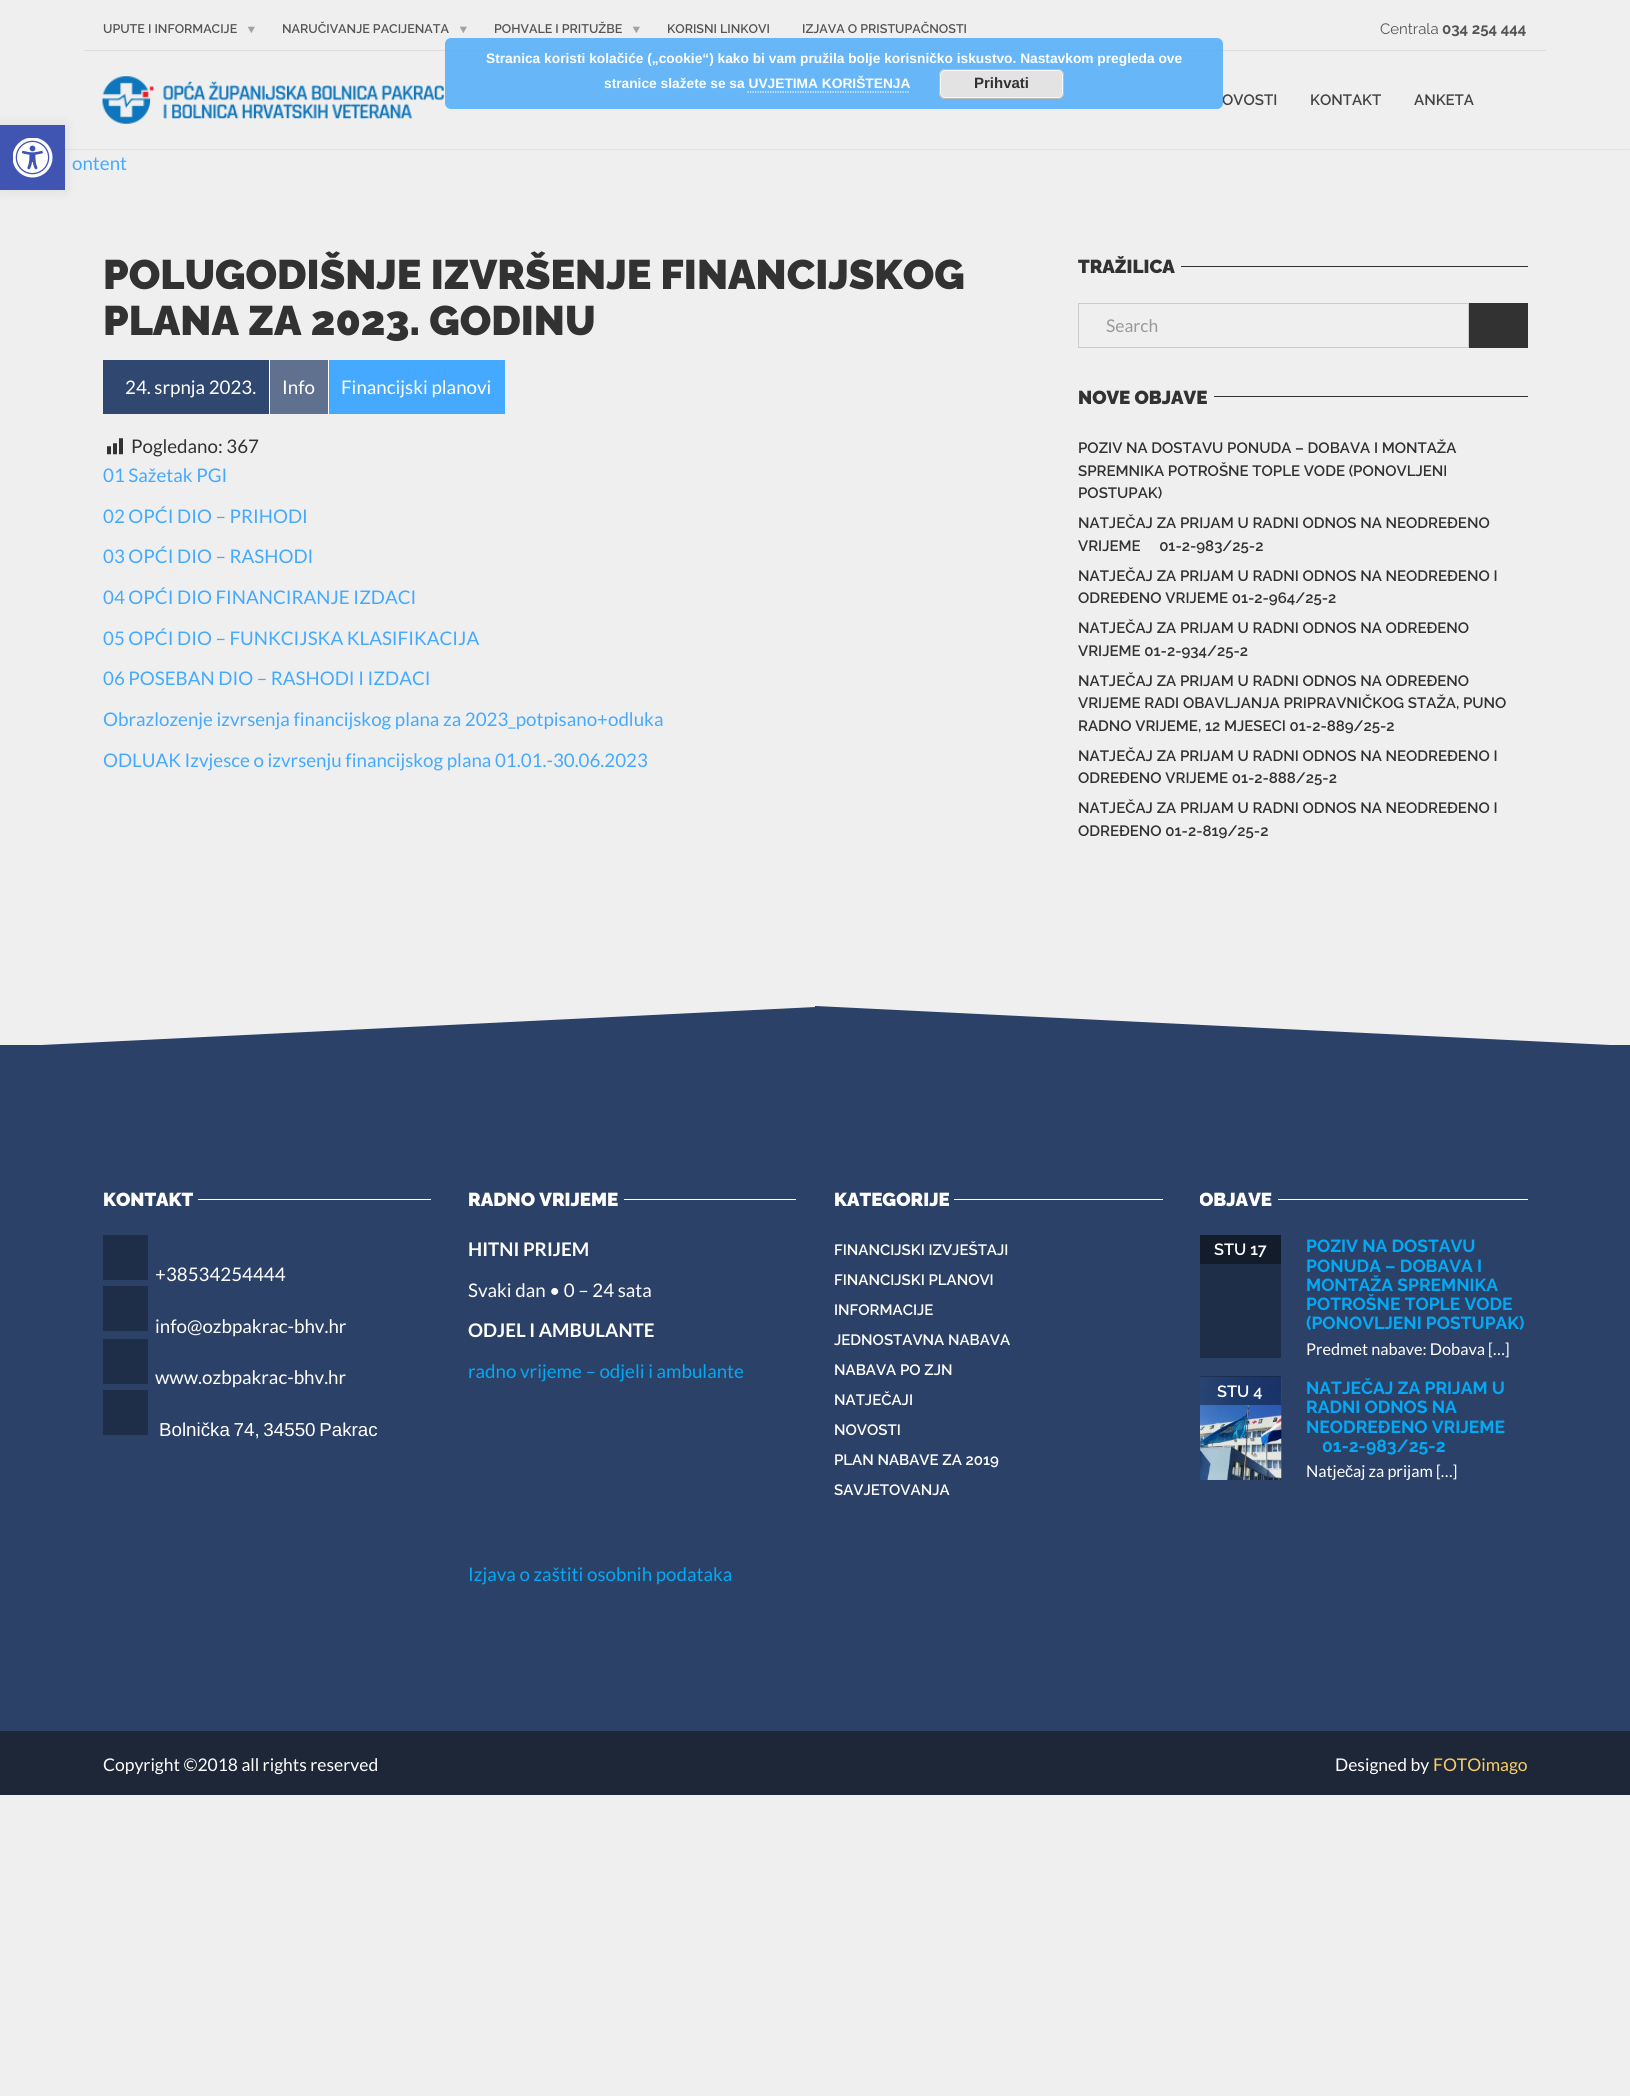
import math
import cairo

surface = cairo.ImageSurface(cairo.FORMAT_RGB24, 1630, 2096)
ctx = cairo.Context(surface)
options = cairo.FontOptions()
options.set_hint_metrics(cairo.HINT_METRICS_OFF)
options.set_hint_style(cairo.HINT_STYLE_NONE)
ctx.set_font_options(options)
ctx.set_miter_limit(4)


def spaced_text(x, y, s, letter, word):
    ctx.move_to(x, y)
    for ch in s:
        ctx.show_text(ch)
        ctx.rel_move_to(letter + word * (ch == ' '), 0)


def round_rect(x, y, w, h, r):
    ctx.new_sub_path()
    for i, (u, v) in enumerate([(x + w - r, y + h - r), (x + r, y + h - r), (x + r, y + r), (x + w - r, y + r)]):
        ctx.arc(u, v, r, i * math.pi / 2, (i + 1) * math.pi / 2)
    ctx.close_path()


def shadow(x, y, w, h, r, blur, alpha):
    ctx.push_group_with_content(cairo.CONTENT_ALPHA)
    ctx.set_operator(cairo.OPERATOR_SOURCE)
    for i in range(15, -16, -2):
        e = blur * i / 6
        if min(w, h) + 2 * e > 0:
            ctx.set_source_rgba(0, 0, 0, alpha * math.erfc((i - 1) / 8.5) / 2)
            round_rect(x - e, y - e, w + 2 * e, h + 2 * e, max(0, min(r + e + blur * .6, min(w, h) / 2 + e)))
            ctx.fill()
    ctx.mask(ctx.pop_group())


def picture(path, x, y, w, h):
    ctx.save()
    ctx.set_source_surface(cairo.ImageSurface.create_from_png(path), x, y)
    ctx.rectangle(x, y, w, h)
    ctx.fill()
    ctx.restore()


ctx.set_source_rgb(0.937, 0.937, 0.937)
ctx.paint()
ctx.set_source_rgb(0, 0, 0)
shadow(0, 0, 1630, 149, 0, 0.5, 0.2)
ctx.set_source_rgb(0.937, 0.937, 0.937)
ctx.rectangle(0, 0, 1630, 149)
ctx.fill()
ctx.set_source_rgb(0.867, 0.867, 0.867)
ctx.rectangle(84, 50, 1462, 1)
ctx.fill()
ctx.select_font_face("Raleway SemiBold")
ctx.set_font_size(12.5)
ctx.set_source_rgb(0.333, 0.333, 0.333)
ctx.move_to(103, 33)
ctx.show_text("UPUTE I INFORMACIJE")
ctx.select_font_face("Noto Sans")
ctx.set_font_size(25)
ctx.set_source_rgb(0.635, 0.635, 0.635)
ctx.save()
ctx.translate(242, 25)
ctx.rotate(90 * math.pi / 180)
ctx.move_to(0, 0)
ctx.show_text("‣")
ctx.restore()
ctx.select_font_face("Raleway SemiBold")
ctx.set_font_size(12.5)
ctx.set_source_rgb(0.333, 0.333, 0.333)
ctx.move_to(282, 33)
ctx.show_text("NARUČIVANJE PACIJENATA")
ctx.select_font_face("Noto Sans")
ctx.set_font_size(25)
ctx.set_source_rgb(0.635, 0.635, 0.635)
ctx.save()
ctx.translate(454, 25)
ctx.rotate(90 * math.pi / 180)
ctx.move_to(0, 0)
ctx.show_text("‣")
ctx.restore()
ctx.select_font_face("Raleway SemiBold")
ctx.set_font_size(12.5)
ctx.set_source_rgb(0.333, 0.333, 0.333)
ctx.move_to(494, 33)
ctx.show_text("POHVALE I PRITUŽBE")
ctx.select_font_face("Noto Sans")
ctx.set_font_size(25)
ctx.set_source_rgb(0.635, 0.635, 0.635)
ctx.save()
ctx.translate(627, 25)
ctx.rotate(90 * math.pi / 180)
ctx.move_to(0, 0)
ctx.show_text("‣")
ctx.restore()
ctx.select_font_face("Raleway SemiBold")
ctx.set_font_size(12.5)
ctx.set_source_rgb(0.333, 0.333, 0.333)
ctx.move_to(667, 33)
ctx.show_text("KORISNI LINKOVI")
ctx.move_to(802, 33)
ctx.show_text("IZJAVA O PRISTUPAČNOSTI")
ctx.select_font_face("Raleway")
ctx.set_font_size(15)
ctx.move_to(1380, 34)
ctx.show_text("Centrala")
ctx.select_font_face("Raleway", cairo.FONT_SLANT_NORMAL, cairo.FONT_WEIGHT_BOLD)
ctx.move_to(1442, 34)
ctx.show_text("034 254 444")
picture("img1.png", 102, 76, 342, 48)
ctx.select_font_face("Raleway SemiBold")
ctx.set_source_rgb(0.267, 0.267, 0.267)
ctx.move_to(1222, 105)
ctx.show_text("OVOSTI")
ctx.move_to(1310, 105)
ctx.show_text("KONTAKT")
ctx.move_to(1414, 105)
ctx.show_text("ANKETA")
ctx.select_font_face("Raleway Black")
ctx.set_font_size(41.25)
ctx.set_source_rgb(0.196, 0.196, 0.196)
ctx.move_to(103, 289)
ctx.show_text("POLUGODIŠNJE IZVRŠENJE FINANCIJSKOG")
ctx.move_to(103, 335)
ctx.show_text("PLANA ZA 2023. GODINU")
ctx.set_source_rgb(0.188, 0.278, 0.439)
ctx.rectangle(103, 360, 166, 54)
ctx.fill()
ctx.select_font_face("Lato")
ctx.set_font_size(18.75)
ctx.set_source_rgb(1, 1, 1)
ctx.move_to(125, 394)
ctx.show_text("24. srpnja 2023.")
ctx.set_source_rgb(0.376, 0.443, 0.565)
ctx.rectangle(270, 360, 58, 54)
ctx.fill()
ctx.set_source_rgb(1, 1, 1)
ctx.rectangle(269, 360, 1, 54)
ctx.fill()
ctx.move_to(282, 394)
ctx.show_text("Info")
ctx.set_source_rgb(0.271, 0.667, 1)
ctx.rectangle(329, 360, 176, 54)
ctx.fill()
ctx.set_source_rgb(1, 1, 1)
ctx.rectangle(328, 360, 1, 54)
ctx.fill()
ctx.move_to(341, 394)
ctx.show_text("Financijski planovi")
picture("img2.png", 107, 438, 16, 17)
ctx.set_source_rgb(0.196, 0.196, 0.196)
ctx.move_to(131, 453)
ctx.show_text("Pogledano: 367")
ctx.set_source_rgb(0.271, 0.667, 1)
ctx.move_to(103, 482)
ctx.show_text("01 Sažetak PGI")
ctx.move_to(103, 523)
ctx.show_text("02 OPĆI DIO – PRIHODI")
ctx.move_to(103, 563)
ctx.show_text("03 OPĆI DIO – RASHODI")
ctx.move_to(103, 604)
ctx.show_text("04 OPĆI DIO FINANCIRANJE IZDACI")
ctx.move_to(103, 645)
ctx.show_text("05 OPĆI DIO – FUNKCIJSKA KLASIFIKACIJA")
ctx.move_to(103, 685)
ctx.show_text("06 POSEBAN DIO – RASHODI I IZDACI")
ctx.move_to(103, 726)
ctx.show_text("Obrazlozenje izvrsenja financijskog plana za 2023_potpisano+odluka")
ctx.move_to(103, 767)
ctx.show_text("ODLUAK Izvjesce o izvrsenju financijskog plana 01.01.-30.06.2023")
ctx.save()
ctx.rectangle(1078, 256, 450, 22)
ctx.clip()
ctx.select_font_face("Raleway Black")
ctx.set_source_rgb(0.196, 0.196, 0.196)
ctx.move_to(1078, 273)
ctx.show_text("TRAŽILICA")
ctx.restore()
ctx.set_source_rgb(0.196, 0.196, 0.196)
ctx.rectangle(1181, 266, 347, 1)
ctx.fill()
ctx.rectangle(1078.5, 303.5, 390, 44)
ctx.set_source_rgb(0.796, 0.796, 0.796)
ctx.set_line_width(1)
ctx.stroke()
ctx.set_font_size(17.5)
ctx.set_source_rgb(0.6, 0.6, 0.6)
ctx.move_to(1106, 332)
ctx.show_text("Search")
ctx.set_source_rgb(0.196, 0.196, 0.196)
ctx.rectangle(1469, 303, 59, 45)
ctx.fill()
ctx.select_font_face("Raleway Black")
ctx.set_font_size(18.75)
ctx.move_to(1078, 404)
ctx.show_text("NOVE OBJAVE")
ctx.rectangle(1214, 396, 314, 1)
ctx.fill()
ctx.select_font_face("Raleway SemiBold")
ctx.set_font_size(15)
ctx.move_to(1078, 453)
ctx.show_text("POZIV NA DOSTAVU PONUDA – DOBAVA I MONTAŽA")
ctx.move_to(1078, 476)
ctx.show_text("SPREMNIKA POTROŠNE TOPLE VODE (PONOVLJENI")
ctx.move_to(1078, 498)
ctx.show_text("POSTUPAK)")
ctx.move_to(1078, 528)
ctx.show_text("NATJEČAJ ZA PRIJAM U RADNI ODNOS NA NEODREĐENO")
ctx.move_to(1078, 551)
ctx.show_text("VRIJEME     01-2-983/25-2")
ctx.move_to(1078, 581)
ctx.show_text("NATJEČAJ ZA PRIJAM U RADNI ODNOS NA NEODREĐENO I")
ctx.move_to(1078, 603)
ctx.show_text("ODREĐENO VRIJEME 01-2-964/25-2")
ctx.move_to(1078, 633)
ctx.show_text("NATJEČAJ ZA PRIJAM U RADNI ODNOS NA ODREĐENO")
ctx.move_to(1078, 656)
ctx.show_text("VRIJEME 01-2-934/25-2")
ctx.move_to(1078, 686)
ctx.show_text("NATJEČAJ ZA PRIJAM U RADNI ODNOS NA ODREĐENO")
ctx.move_to(1078, 708)
ctx.show_text("VRIJEME RADI OBAVLJANJA PRIPRAVNIČKOG STAŽA, PUNO")
ctx.move_to(1078, 731)
ctx.show_text("RADNO VRIJEME, 12 MJESECI 01-2-889/25-2")
ctx.move_to(1078, 761)
ctx.show_text("NATJEČAJ ZA PRIJAM U RADNI ODNOS NA NEODREĐENO I")
ctx.move_to(1078, 783)
ctx.show_text("ODREĐENO VRIJEME 01-2-888/25-2")
ctx.move_to(1078, 813)
ctx.show_text("NATJEČAJ ZA PRIJAM U RADNI ODNOS NA NEODREĐENO I")
ctx.move_to(1078, 836)
ctx.show_text("ODREĐENO 01-2-819/25-2")
ctx.set_source_rgb(0.173, 0.255, 0.404)
ctx.rectangle(0, 1045, 1630, 686)
ctx.fill()
ctx.new_path()
ctx.move_to(815, 1047)
ctx.line_to(815, 1007)
ctx.line_to(0, 1047)
ctx.close_path()
ctx.fill()
ctx.new_path()
ctx.move_to(815, 1046)
ctx.line_to(815, 1006)
ctx.line_to(1630, 1046)
ctx.close_path()
ctx.fill()
ctx.select_font_face("Raleway Black")
ctx.set_font_size(18.75)
ctx.set_source_rgb(1, 1, 1)
ctx.move_to(103, 1206)
ctx.show_text("KONTAKT")
ctx.rectangle(198, 1199, 233, 1)
ctx.fill()
ctx.set_source_rgb(0.122, 0.18, 0.282)
ctx.rectangle(103, 1235, 45, 45)
ctx.fill()
ctx.select_font_face("Lato")
ctx.set_source_rgb(1, 1, 1)
ctx.move_to(155, 1281)
ctx.show_text("+38534254444")
ctx.set_source_rgb(0.122, 0.18, 0.282)
ctx.rectangle(103, 1286, 45, 45)
ctx.fill()
ctx.set_source_rgb(1, 1, 1)
ctx.move_to(155, 1333)
ctx.show_text("info@ozbpakrac-bhv.hr")
ctx.set_source_rgb(0.122, 0.18, 0.282)
ctx.rectangle(103, 1339, 45, 45)
ctx.fill()
ctx.set_source_rgb(1, 1, 1)
ctx.move_to(155, 1384)
ctx.show_text("www.ozbpakrac-bhv.hr")
ctx.set_source_rgb(0.122, 0.18, 0.282)
ctx.rectangle(103, 1390, 45, 45)
ctx.fill()
ctx.select_font_face("Liberation Sans")
ctx.set_source_rgb(1, 1, 1)
spaced_text(159, 1436, "Bolnička 74, 34550 Pakrac", 0, -1.5)
ctx.select_font_face("Raleway Black")
ctx.move_to(468, 1206)
ctx.show_text("RADNO VRIJEME")
ctx.rectangle(624, 1199, 172, 1)
ctx.fill()
ctx.select_font_face("Lato", cairo.FONT_SLANT_NORMAL, cairo.FONT_WEIGHT_BOLD)
ctx.move_to(468, 1256)
ctx.show_text("HITNI PRIJEM")
ctx.select_font_face("Lato")
ctx.move_to(468, 1297)
ctx.show_text("Svaki dan • 0 – 24 sata")
ctx.select_font_face("Lato", cairo.FONT_SLANT_NORMAL, cairo.FONT_WEIGHT_BOLD)
ctx.move_to(468, 1337)
ctx.show_text("ODJEL I AMBULANTE")
ctx.select_font_face("Lato")
ctx.set_source_rgb(0.012, 0.663, 0.957)
ctx.move_to(468, 1378)
ctx.show_text("radno vrijeme – odjeli i ambulante")
ctx.move_to(468, 1581)
ctx.show_text("Izjava o zaštiti osobnih podataka")
ctx.select_font_face("Raleway Black")
ctx.set_source_rgb(1, 1, 1)
ctx.move_to(834, 1206)
ctx.show_text("KATEGORIJE")
ctx.rectangle(954, 1199, 209, 1)
ctx.fill()
ctx.select_font_face("Raleway SemiBold")
ctx.set_font_size(15)
ctx.move_to(834, 1255)
ctx.show_text("FINANCIJSKI IZVJEŠTAJI")
ctx.move_to(834, 1285)
ctx.show_text("FINANCIJSKI PLANOVI")
ctx.move_to(834, 1315)
ctx.show_text("INFORMACIJE")
ctx.move_to(834, 1345)
ctx.show_text("JEDNOSTAVNA NABAVA")
ctx.move_to(834, 1375)
ctx.show_text("NABAVA PO ZJN")
ctx.move_to(834, 1405)
ctx.show_text("NATJEČAJI")
ctx.move_to(834, 1435)
ctx.show_text("NOVOSTI")
ctx.move_to(834, 1465)
ctx.show_text("PLAN NABAVE ZA 2019")
ctx.move_to(834, 1495)
ctx.show_text("SAVJETOVANJA")
ctx.save()
ctx.rectangle(1200, 1189, 328, 21)
ctx.clip()
ctx.select_font_face("Raleway Black")
ctx.set_font_size(18.75)
ctx.move_to(1199, 1206)
ctx.show_text("OBJAVE")
ctx.restore()
ctx.rectangle(1278, 1199, 250, 1)
ctx.fill()
ctx.set_source_rgb(0.075, 0.11, 0.169)
ctx.rectangle(1200, 1235, 81, 29)
ctx.fill()
ctx.set_font_size(16.25)
ctx.set_source_rgb(1, 1, 1)
ctx.move_to(1214, 1255)
ctx.show_text("STU 17")
ctx.select_font_face("Raleway", cairo.FONT_SLANT_NORMAL, cairo.FONT_WEIGHT_BOLD)
ctx.set_font_size(17.5)
ctx.set_source_rgb(0.012, 0.663, 0.957)
ctx.move_to(1306, 1252)
ctx.show_text("POZIV NA DOSTAVU")
ctx.move_to(1306, 1272)
ctx.show_text("PONUDA – DOBAVA I")
ctx.move_to(1306, 1291)
ctx.show_text("MONTAŽA SPREMNIKA")
ctx.move_to(1306, 1310)
ctx.show_text("POTROŠNE TOPLE VODE")
ctx.move_to(1306, 1329)
ctx.show_text("(PONOVLJENI POSTUPAK)")
ctx.set_source_rgb(0.122, 0.18, 0.282)
ctx.rectangle(1200, 1264, 81, 94)
ctx.fill()
ctx.select_font_face("Lato")
ctx.set_font_size(16.25)
ctx.set_source_rgb(1, 1, 1)
ctx.move_to(1306, 1355)
ctx.show_text("Predmet nabave: Dobava […]")
ctx.set_source_rgb(0.122, 0.18, 0.282)
ctx.rectangle(1200, 1376, 81, 1)
ctx.fill()
picture("img3.png", 1200, 1376, 82, 104)
ctx.set_source_rgba(0, 0, 0, 0.4)
ctx.rectangle(1200, 1376, 81, 29)
ctx.fill()
ctx.select_font_face("Raleway SemiBold")
ctx.set_source_rgb(1, 1, 1)
ctx.move_to(1217, 1397)
ctx.show_text("STU 4")
ctx.select_font_face("Raleway", cairo.FONT_SLANT_NORMAL, cairo.FONT_WEIGHT_BOLD)
ctx.set_font_size(17.5)
ctx.set_source_rgb(0.012, 0.663, 0.957)
ctx.move_to(1306, 1394)
ctx.show_text("NATJEČAJ ZA PRIJAM U")
ctx.move_to(1306, 1413)
ctx.show_text("RADNI ODNOS NA")
ctx.move_to(1306, 1433)
ctx.show_text("NEODREĐENO VRIJEME")
ctx.move_to(1322, 1452)
ctx.show_text("01-2-983/25-2")
ctx.select_font_face("Lato")
ctx.set_font_size(16.25)
ctx.set_source_rgb(1, 1, 1)
ctx.move_to(1306, 1477)
ctx.show_text("Natje")
ctx.select_font_face("Liberation Sans")
ctx.move_to(1345, 1477)
ctx.show_text("č")
ctx.select_font_face("Lato")
ctx.move_to(1353, 1477)
ctx.show_text("aj za prijam […]")
ctx.set_source_rgb(0.118, 0.153, 0.216)
ctx.rectangle(0, 1731, 1630, 64)
ctx.fill()
ctx.set_font_size(17.5)
ctx.set_source_rgb(1, 1, 1)
ctx.move_to(103, 1771)
ctx.show_text("Copyright ©2018 all rights reserved")
ctx.move_to(1335, 1771)
ctx.show_text("Designed by")
ctx.set_source_rgb(0.976, 0.808, 0.38)
ctx.move_to(1433, 1771)
ctx.show_text("FOTOimago")
ctx.set_source_rgba(0.306, 0.671, 0.976, 0.85)
round_rect(445, 38, 778, 71, 6)
ctx.fill()
ctx.select_font_face("Liberation Sans", cairo.FONT_SLANT_NORMAL, cairo.FONT_WEIGHT_BOLD)
ctx.set_font_size(13.75)
ctx.set_source_rgb(1, 1, 1)
ctx.move_to(486, 63)
ctx.show_text("Stranica koristi kolačiće („cookie“) kako bi vam pružila bolje korisničko iskustvo. Nastavkom pregleda ove")
ctx.move_to(604, 88)
ctx.show_text("stranice slažete se sa UVJETIMA KORIŠTENJA")
ctx.set_source_rgb(0.89, 0.89, 0.89)
round_rect(939, 69, 125, 30, 6)
ctx.fill()
round_rect(940.5, 70.5, 122, 27, 4.5)
ctx.set_source_rgb(0.965, 0.965, 0.965)
ctx.stroke()
round_rect(939.5, 69.5, 124, 29, 5.5)
ctx.set_source_rgb(0.733, 0.733, 0.733)
ctx.stroke()
ctx.set_font_size(15)
ctx.set_source_rgb(0.196, 0.196, 0.196)
ctx.move_to(974, 88)
ctx.show_text("Prihvati")
ctx.new_path()
ctx.move_to(747.5, 92)
ctx.line_to(910, 92)
ctx.set_source_rgb(1, 1, 1)
ctx.set_line_width(1.2)
ctx.set_dash([1.25, 1.25])
ctx.stroke()
ctx.set_source_rgb(0, 0, 0)
shadow(0, 125, 65, 65, 0, 6, 0.1)
ctx.set_source_rgb(0.251, 0.329, 0.698)
ctx.rectangle(0, 125, 65, 65)
ctx.fill()
picture("img4.png", 13, 138, 40, 40)
ctx.select_font_face("Lato")
ctx.set_font_size(18.75)
ctx.set_source_rgb(0.271, 0.667, 1)
ctx.move_to(72, 170)
ctx.show_text("ontent")
surface.write_to_png("page.png")
